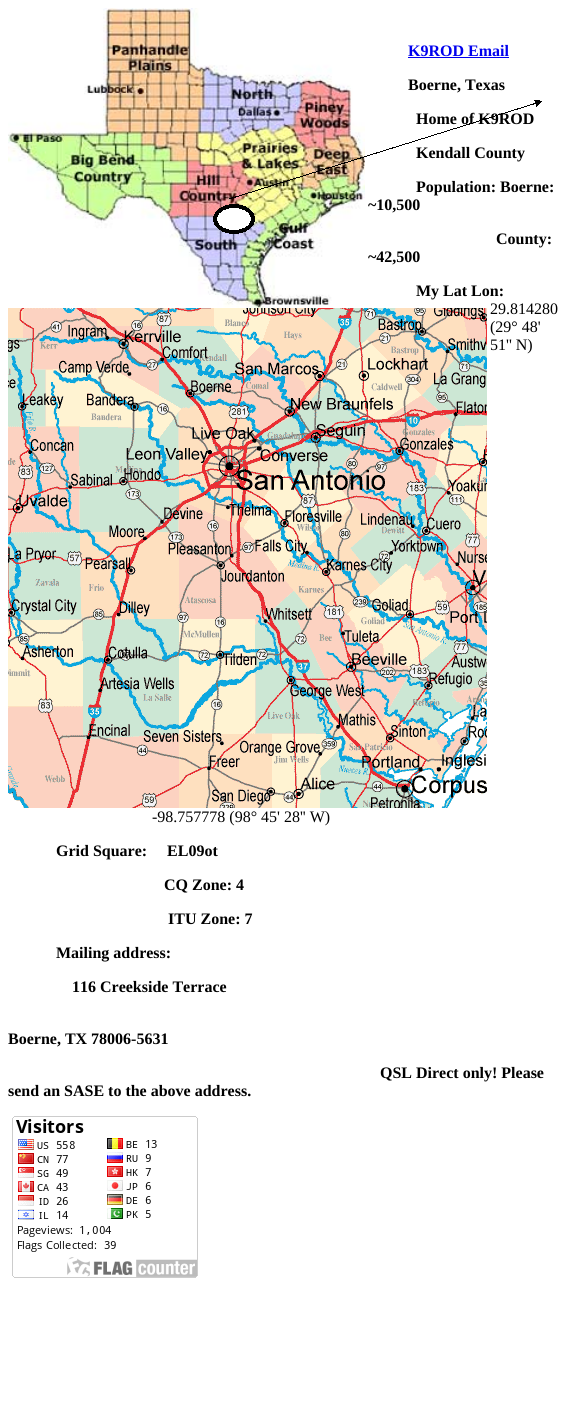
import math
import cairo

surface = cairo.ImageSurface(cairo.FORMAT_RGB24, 574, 1405)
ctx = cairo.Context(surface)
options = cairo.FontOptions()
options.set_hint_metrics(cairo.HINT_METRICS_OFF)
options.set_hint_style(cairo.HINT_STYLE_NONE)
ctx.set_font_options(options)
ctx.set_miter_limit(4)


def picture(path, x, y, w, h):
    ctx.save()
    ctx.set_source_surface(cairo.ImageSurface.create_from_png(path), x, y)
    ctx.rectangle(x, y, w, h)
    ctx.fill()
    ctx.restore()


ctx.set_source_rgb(1, 1, 1)
ctx.paint()
picture("img1.png", 8, 8, 357, 300)
picture("img2.png", 213, 204, 42, 30)
ctx.select_font_face("Liberation Serif", cairo.FONT_SLANT_NORMAL, cairo.FONT_WEIGHT_BOLD)
ctx.set_font_size(16)
ctx.set_source_rgb(0, 0, 0.933)
ctx.move_to(408, 56)
ctx.show_text("K9ROD Email")
ctx.rectangle(408, 57, 101, 1)
ctx.fill()
ctx.set_source_rgb(0, 0, 0)
ctx.move_to(408, 90)
ctx.show_text("Boerne, Texas")
ctx.move_to(416, 124)
ctx.show_text("Home of K9ROD")
ctx.move_to(416, 158)
ctx.show_text("Kendall County")
ctx.move_to(416, 192)
ctx.show_text("Population: Boerne:")
picture("img3.png", 229, 100, 313, 99)
ctx.move_to(368, 210)
ctx.show_text("~10,500")
ctx.move_to(496, 244)
ctx.show_text("County:")
ctx.move_to(368, 262)
ctx.show_text("~42,500")
ctx.move_to(416, 296)
ctx.show_text("My Lat Lon:")
ctx.select_font_face("Liberation Serif")
ctx.move_to(490, 314)
ctx.show_text("29.814280")
ctx.move_to(490, 332)
ctx.show_text("(29° 48'")
ctx.move_to(490, 350)
ctx.show_text("51'' N)")
picture("img4.png", 8, 308, 479, 500)
ctx.move_to(152, 822)
ctx.show_text("-98.757778 (98° 45' 28'' W)")
ctx.select_font_face("Liberation Serif", cairo.FONT_SLANT_NORMAL, cairo.FONT_WEIGHT_BOLD)
ctx.move_to(56, 856)
ctx.show_text("Grid Square:     EL09ot")
ctx.move_to(164, 890)
ctx.show_text("CQ Zone: 4")
ctx.move_to(168, 924)
ctx.show_text("ITU Zone: 7")
ctx.move_to(56, 958)
ctx.show_text("Mailing address:")
ctx.move_to(72, 992)
ctx.show_text("116 Creekside Terrace")
ctx.move_to(8, 1044)
ctx.show_text("Boerne, TX 78006-5631")
ctx.move_to(380, 1078)
ctx.show_text("QSL Direct only! Please")
ctx.move_to(8, 1096)
ctx.show_text("send an SASE to the above address.")
picture("img5.png", 12, 1116, 186, 162)
surface.write_to_png("page.png")
